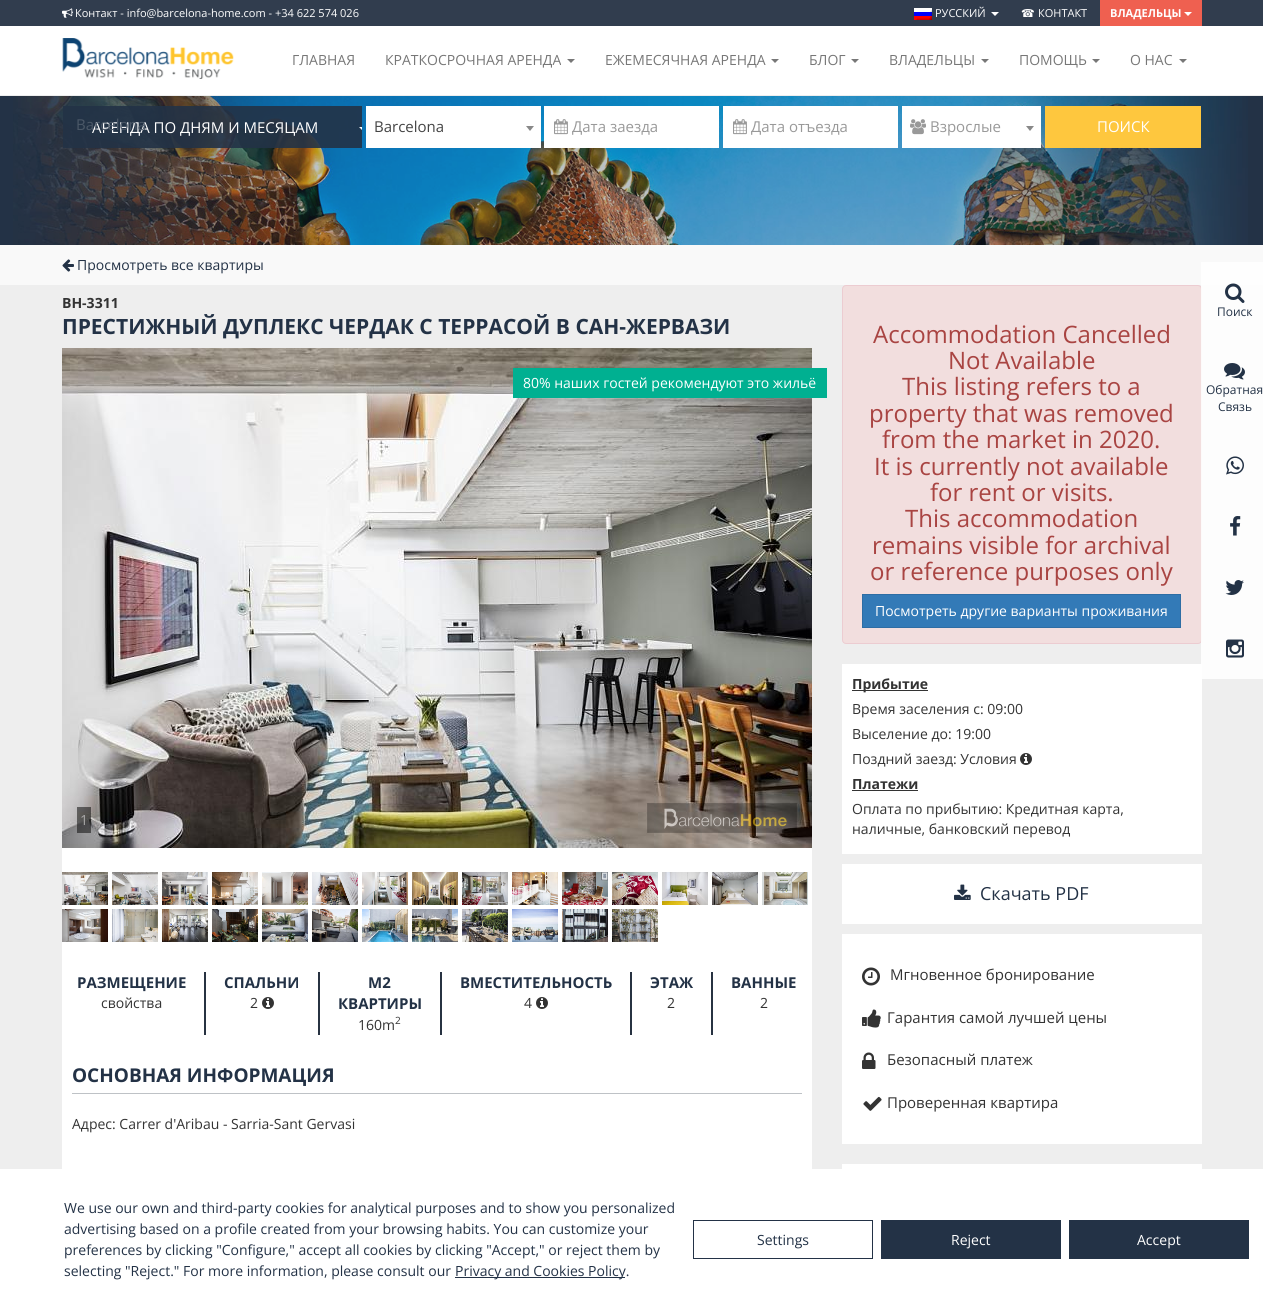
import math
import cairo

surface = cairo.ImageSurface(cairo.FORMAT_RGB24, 1263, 1309)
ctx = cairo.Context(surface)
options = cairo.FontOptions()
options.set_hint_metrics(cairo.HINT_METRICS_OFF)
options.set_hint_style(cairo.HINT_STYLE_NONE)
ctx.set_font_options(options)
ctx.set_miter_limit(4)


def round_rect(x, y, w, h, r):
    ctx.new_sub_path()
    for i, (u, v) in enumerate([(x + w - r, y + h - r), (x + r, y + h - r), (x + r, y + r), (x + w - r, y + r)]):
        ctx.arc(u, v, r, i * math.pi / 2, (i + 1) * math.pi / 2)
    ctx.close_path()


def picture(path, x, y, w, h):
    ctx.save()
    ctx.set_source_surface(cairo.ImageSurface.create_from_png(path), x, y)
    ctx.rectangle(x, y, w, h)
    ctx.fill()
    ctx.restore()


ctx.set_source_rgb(0.933, 0.933, 0.933)
ctx.paint()
ctx.set_source_rgb(0.192, 0.239, 0.306)
ctx.rectangle(0, 0, 1263, 26)
ctx.fill()
picture("img1.png", 62, 8, 11, 10)
ctx.select_font_face("Open Sans")
ctx.set_font_size(11)
ctx.set_source_rgb(1, 1, 1)
ctx.move_to(75, 17)
ctx.show_text("Контакт - info@barcelona-home.com - +34 622 574 026")
picture("img2.png", 914, 8, 18, 12)
ctx.move_to(935, 17)
ctx.show_text("РУССКИЙ")
ctx.new_path()
ctx.move_to(991, 12)
ctx.line_to(999, 12)
ctx.line_to(995, 16)
ctx.close_path()
ctx.fill()
ctx.select_font_face("DejaVu Sans")
ctx.move_to(1021, 17)
ctx.show_text("☎")
ctx.select_font_face("Open Sans")
ctx.move_to(1038, 17)
ctx.show_text("КОНТАКТ")
ctx.set_source_rgb(0.937, 0.376, 0.314)
ctx.rectangle(1100, 0, 102, 26)
ctx.fill()
ctx.select_font_face("Open Sans", cairo.FONT_SLANT_NORMAL, cairo.FONT_WEIGHT_BOLD)
ctx.set_source_rgb(1, 1, 1)
ctx.move_to(1110, 17)
ctx.show_text("ВЛАДЕЛЬЦЫ")
ctx.new_path()
ctx.move_to(1184, 12)
ctx.line_to(1192, 12)
ctx.line_to(1188, 16)
ctx.close_path()
ctx.fill()
ctx.rectangle(0, 26, 1263, 69)
ctx.fill()
picture("img3.png", 62, 38, 172, 41)
ctx.select_font_face("Open Sans")
ctx.set_font_size(14)
ctx.set_source_rgb(0.467, 0.467, 0.467)
ctx.move_to(292, 65)
ctx.show_text("ГЛАВНАЯ")
ctx.move_to(385, 65)
ctx.show_text("КРАТКОСРОЧНАЯ АРЕНДА")
ctx.new_path()
ctx.move_to(567, 59)
ctx.line_to(575, 59)
ctx.line_to(571, 63)
ctx.close_path()
ctx.fill()
ctx.move_to(605, 65)
ctx.show_text("ЕЖЕМЕСЯЧНАЯ АРЕНДА")
ctx.new_path()
ctx.move_to(771, 59)
ctx.line_to(779, 59)
ctx.line_to(775, 63)
ctx.close_path()
ctx.fill()
ctx.move_to(809, 65)
ctx.show_text("БЛОГ")
ctx.new_path()
ctx.move_to(851, 59)
ctx.line_to(859, 59)
ctx.line_to(855, 63)
ctx.close_path()
ctx.fill()
ctx.move_to(889, 65)
ctx.show_text("ВЛАДЕЛЬЦЫ")
ctx.new_path()
ctx.move_to(981, 59)
ctx.line_to(989, 59)
ctx.line_to(985, 63)
ctx.close_path()
ctx.fill()
ctx.move_to(1019, 65)
ctx.show_text("ПОМОЩЬ")
ctx.new_path()
ctx.move_to(1092, 59)
ctx.line_to(1100, 59)
ctx.line_to(1096, 63)
ctx.close_path()
ctx.fill()
ctx.move_to(1130, 65)
ctx.show_text("O НАС")
ctx.new_path()
ctx.move_to(1179, 59)
ctx.line_to(1187, 59)
ctx.line_to(1183, 63)
ctx.close_path()
ctx.fill()
ctx.set_source_rgb(0.137, 0.196, 0.275)
ctx.rectangle(0, 96, 1263, 149)
ctx.fill()
picture("img4.png", 13, 96, 1235, 149)
ctx.set_source_rgba(0.137, 0.196, 0.275, 0.9)
ctx.rectangle(63, 106, 299, 42)
ctx.fill()
ctx.set_font_size(15)
ctx.set_source_rgb(1, 1, 1)
ctx.move_to(92, 133)
ctx.show_text("АРЕНДА ПО ДНЯМ И МЕСЯЦАМ")
ctx.set_source_rgb(0.294, 0.345, 0.404)
ctx.move_to(76, 130)
ctx.show_text("Barcelona")
ctx.set_source_rgb(1, 1, 1)
ctx.rectangle(366, 106, 175, 42)
ctx.fill()
ctx.set_source_rgb(0.267, 0.267, 0.267)
ctx.move_to(374, 132)
ctx.show_text("Barcelona")
ctx.set_source_rgb(0.533, 0.533, 0.533)
ctx.new_path()
ctx.move_to(526, 126)
ctx.line_to(534, 126)
ctx.line_to(530, 131)
ctx.close_path()
ctx.fill()
ctx.set_source_rgb(1, 1, 1)
ctx.rectangle(544, 106, 175, 42)
ctx.fill()
picture("img5.png", 554, 119, 14, 16)
ctx.set_source_rgb(0.6, 0.6, 0.6)
ctx.move_to(572, 132)
ctx.show_text("Дата заезда")
ctx.set_source_rgb(1, 1, 1)
ctx.rectangle(723, 106, 175, 42)
ctx.fill()
picture("img5.png", 733, 119, 14, 16)
ctx.set_source_rgb(0.6, 0.6, 0.6)
ctx.move_to(751, 132)
ctx.show_text("Дата отъезда")
ctx.set_source_rgb(1, 1, 1)
ctx.rectangle(902, 106, 139, 42)
ctx.fill()
picture("img6.png", 910, 119, 16, 16)
ctx.set_source_rgb(0.6, 0.6, 0.6)
ctx.move_to(930, 132)
ctx.show_text("Взрослые")
ctx.set_source_rgb(0.533, 0.533, 0.533)
ctx.new_path()
ctx.move_to(1026, 126)
ctx.line_to(1034, 126)
ctx.line_to(1030, 131)
ctx.close_path()
ctx.fill()
ctx.set_source_rgb(0.996, 0.78, 0.243)
ctx.rectangle(1045, 106, 156, 42)
ctx.fill()
ctx.set_source_rgb(1, 1, 1)
ctx.move_to(1097, 132)
ctx.show_text("ПОИСК")
ctx.save()
ctx.rectangle(62, 106, 300, 42)
ctx.clip()
ctx.new_path()
ctx.move_to(359, 127)
ctx.line_to(367, 127)
ctx.line_to(363, 131)
ctx.close_path()
ctx.fill()
ctx.restore()
ctx.set_source_rgb(0.976, 0.976, 0.976)
ctx.rectangle(0, 245, 1263, 40)
ctx.fill()
picture("img7.png", 62, 259, 12, 13)
ctx.set_font_size(14)
ctx.set_source_rgb(0.137, 0.196, 0.275)
ctx.move_to(77, 270)
ctx.show_text("Просмотреть все квартиры")
ctx.select_font_face("Open Sans", cairo.FONT_SLANT_NORMAL, cairo.FONT_WEIGHT_BOLD)
ctx.set_source_rgb(0.2, 0.2, 0.2)
ctx.move_to(62, 308)
ctx.show_text("BH-3311")
ctx.set_font_size(21)
ctx.set_source_rgb(0.137, 0.196, 0.275)
ctx.move_to(62, 334)
ctx.show_text("ПРЕСТИЖНЫЙ ДУПЛЕКС ЧЕРДАК С ТЕРРАСОЙ В САН-ЖЕРВАЗИ")
picture("img8.png", 62, 348, 750, 500)
ctx.set_source_rgb(0, 0.69, 0.569)
ctx.rectangle(513, 368, 314, 30)
ctx.fill()
ctx.select_font_face("Open Sans")
ctx.set_font_size(14)
ctx.set_source_rgb(1, 1, 1)
ctx.move_to(523, 388)
ctx.show_text("80% наших гостей рекомендуют это жильё")
ctx.set_source_rgba(0, 0, 0, 0.5)
ctx.rectangle(77, 807, 14, 26)
ctx.fill()
ctx.set_source_rgb(0.663, 0.659, 0.659)
ctx.move_to(80, 825)
ctx.show_text("1")
picture("img9.png", 647, 803, 150, 30)
ctx.set_source_rgb(1, 1, 1)
ctx.rectangle(62, 848, 750, 321)
ctx.fill()
picture("img10.png", 62, 872, 46, 33)
picture("img11.png", 112, 872, 46, 33)
picture("img12.png", 162, 872, 46, 33)
picture("img13.png", 212, 872, 46, 33)
picture("img14.png", 262, 872, 46, 33)
picture("img15.png", 312, 872, 46, 33)
picture("img16.png", 362, 872, 46, 33)
picture("img17.png", 412, 872, 46, 33)
picture("img18.png", 462, 872, 46, 33)
picture("img19.png", 512, 872, 46, 33)
picture("img20.png", 562, 872, 46, 33)
picture("img21.png", 612, 872, 46, 33)
picture("img22.png", 662, 872, 46, 33)
picture("img23.png", 712, 872, 46, 33)
picture("img24.png", 762, 872, 46, 33)
picture("img25.png", 62, 909, 46, 33)
picture("img26.png", 112, 909, 46, 33)
picture("img27.png", 162, 909, 46, 33)
picture("img28.png", 212, 909, 46, 33)
picture("img29.png", 262, 909, 46, 33)
picture("img30.png", 312, 909, 46, 33)
picture("img31.png", 362, 909, 46, 33)
picture("img32.png", 412, 909, 46, 33)
picture("img33.png", 462, 909, 46, 33)
picture("img34.png", 512, 909, 46, 33)
picture("img35.png", 562, 909, 46, 33)
picture("img36.png", 612, 909, 46, 33)
ctx.set_source_rgb(0.153, 0.196, 0.255)
ctx.rectangle(204, 972, 2, 63)
ctx.fill()
ctx.select_font_face("Open Sans", cairo.FONT_SLANT_NORMAL, cairo.FONT_WEIGHT_BOLD)
ctx.set_font_size(15)
ctx.set_source_rgb(0.137, 0.196, 0.275)
ctx.move_to(77, 988)
ctx.show_text("РАЗМЕЩЕНИЕ")
ctx.select_font_face("Open Sans")
ctx.set_font_size(14)
ctx.set_source_rgb(0.2, 0.2, 0.2)
ctx.move_to(101, 1008)
ctx.show_text("свойства")
ctx.set_source_rgb(0.153, 0.196, 0.255)
ctx.rectangle(318, 972, 2, 63)
ctx.fill()
ctx.select_font_face("Open Sans", cairo.FONT_SLANT_NORMAL, cairo.FONT_WEIGHT_BOLD)
ctx.set_font_size(15)
ctx.set_source_rgb(0.137, 0.196, 0.275)
ctx.move_to(224, 988)
ctx.show_text("СПАЛЬНИ")
ctx.select_font_face("Open Sans")
ctx.set_font_size(14)
ctx.set_source_rgb(0.2, 0.2, 0.2)
ctx.move_to(250, 1008)
ctx.show_text("2")
picture("img37.png", 262, 997, 12, 12)
ctx.set_source_rgb(0.153, 0.196, 0.255)
ctx.rectangle(440, 972, 2, 63)
ctx.fill()
ctx.select_font_face("Open Sans", cairo.FONT_SLANT_NORMAL, cairo.FONT_WEIGHT_BOLD)
ctx.set_font_size(15)
ctx.set_source_rgb(0.137, 0.196, 0.275)
ctx.move_to(368, 988)
ctx.show_text("M2")
ctx.move_to(338, 1009)
ctx.show_text("КВАРТИРЫ")
ctx.select_font_face("Open Sans")
ctx.set_font_size(14)
ctx.set_source_rgb(0.2, 0.2, 0.2)
ctx.move_to(358, 1030)
ctx.show_text("160m")
ctx.set_font_size(10)
ctx.move_to(395, 1024)
ctx.show_text("2")
ctx.set_source_rgb(0.153, 0.196, 0.255)
ctx.rectangle(630, 972, 2, 63)
ctx.fill()
ctx.select_font_face("Open Sans", cairo.FONT_SLANT_NORMAL, cairo.FONT_WEIGHT_BOLD)
ctx.set_font_size(15)
ctx.set_source_rgb(0.137, 0.196, 0.275)
ctx.move_to(460, 988)
ctx.show_text("ВМЕСТИТЕЛЬНОСТЬ")
ctx.select_font_face("Open Sans")
ctx.set_font_size(14)
ctx.set_source_rgb(0.2, 0.2, 0.2)
ctx.move_to(524, 1008)
ctx.show_text("4")
picture("img37.png", 536, 997, 12, 12)
ctx.set_source_rgb(0.153, 0.196, 0.255)
ctx.rectangle(711, 972, 2, 63)
ctx.fill()
ctx.select_font_face("Open Sans", cairo.FONT_SLANT_NORMAL, cairo.FONT_WEIGHT_BOLD)
ctx.set_font_size(15)
ctx.set_source_rgb(0.137, 0.196, 0.275)
ctx.move_to(650, 988)
ctx.show_text("ЭТАЖ")
ctx.select_font_face("Open Sans")
ctx.set_font_size(14)
ctx.set_source_rgb(0.2, 0.2, 0.2)
ctx.move_to(667, 1008)
ctx.show_text("2")
ctx.select_font_face("Open Sans", cairo.FONT_SLANT_NORMAL, cairo.FONT_WEIGHT_BOLD)
ctx.set_font_size(15)
ctx.set_source_rgb(0.137, 0.196, 0.275)
ctx.move_to(731, 988)
ctx.show_text("ВАННЫЕ")
ctx.select_font_face("Open Sans")
ctx.set_font_size(14)
ctx.set_source_rgb(0.2, 0.2, 0.2)
ctx.move_to(760, 1008)
ctx.show_text("2")
ctx.select_font_face("Open Sans", cairo.FONT_SLANT_NORMAL, cairo.FONT_WEIGHT_BOLD)
ctx.set_font_size(19)
ctx.set_source_rgb(0.137, 0.196, 0.275)
ctx.move_to(72, 1082)
ctx.show_text("ОСНОВНАЯ ИНФОРМАЦИЯ")
ctx.set_source_rgb(0.745, 0.761, 0.776)
ctx.rectangle(72, 1093, 730, 1)
ctx.fill()
ctx.select_font_face("Open Sans")
ctx.set_font_size(14)
ctx.set_source_rgb(0.2, 0.2, 0.2)
ctx.move_to(72, 1129)
ctx.show_text("Адрес: Carrer d'Aribau - Sarria-Sant Gervasi")
ctx.set_source_rgb(0.949, 0.871, 0.871)
round_rect(842.5, 285.5, 359, 358, 3.5)
ctx.fill_preserve()
ctx.set_source_rgb(0.922, 0.8, 0.82)
ctx.set_line_width(1)
ctx.stroke()
ctx.set_font_size(24)
ctx.set_source_rgb(0.663, 0.267, 0.259)
ctx.move_to(873, 343)
ctx.show_text("Accommodation Cancelled")
ctx.move_to(948, 369)
ctx.show_text("Not Available")
ctx.move_to(902, 395)
ctx.show_text("This listing refers to a")
ctx.move_to(869, 422)
ctx.show_text("property that was removed")
ctx.move_to(882, 448)
ctx.show_text("from the market in 2020.")
ctx.move_to(874, 475)
ctx.show_text("It is currently not available")
ctx.move_to(930, 501)
ctx.show_text("for rent or visits.")
ctx.move_to(905, 527)
ctx.show_text("This accommodation")
ctx.move_to(872, 554)
ctx.show_text("remains visible for archival")
ctx.move_to(870, 580)
ctx.show_text("or reference purposes only")
ctx.set_source_rgb(0.2, 0.478, 0.718)
ctx.rectangle(862.5, 594.5, 318, 33)
ctx.fill_preserve()
ctx.set_source_rgb(0.18, 0.427, 0.643)
ctx.stroke()
ctx.set_font_size(14)
ctx.set_source_rgb(1, 1, 1)
ctx.move_to(875, 616)
ctx.show_text("Посмотреть другие варианты проживания")
ctx.rectangle(842, 664, 360, 190)
ctx.fill()
ctx.set_source_rgb(0.2, 0.2, 0.2)
ctx.rectangle(852, 690, 76, 1)
ctx.fill()
ctx.select_font_face("Open Sans", cairo.FONT_SLANT_NORMAL, cairo.FONT_WEIGHT_BOLD)
ctx.move_to(852, 689)
ctx.show_text("Прибытие")
ctx.select_font_face("Open Sans")
ctx.move_to(852, 714)
ctx.show_text("Время заселения с: 09:00")
ctx.move_to(852, 739)
ctx.show_text("Выселение до: 19:00")
ctx.move_to(852, 764)
ctx.show_text("Поздний заезд: Условия")
picture("img37.png", 1020, 753, 12, 12)
ctx.select_font_face("Open Sans", cairo.FONT_SLANT_NORMAL, cairo.FONT_WEIGHT_BOLD)
ctx.move_to(852, 789)
ctx.show_text("Платежи")
ctx.rectangle(852, 790, 66, 1)
ctx.fill()
ctx.select_font_face("Open Sans")
ctx.move_to(852, 814)
ctx.show_text("Оплата по прибытию: Кредитная карта,")
ctx.move_to(852, 834)
ctx.show_text("наличные, банковский перевод")
ctx.set_source_rgb(1, 1, 1)
ctx.rectangle(842, 864, 360, 60)
ctx.fill()
picture("img38.png", 954, 884, 17, 16)
ctx.set_font_size(18)
ctx.set_source_rgb(0.137, 0.196, 0.275)
ctx.move_to(980, 900)
ctx.show_text("Скачать PDF")
ctx.set_source_rgb(1, 1, 1)
ctx.rectangle(842, 934, 360, 210)
ctx.fill()
picture("img39.png", 862, 967, 18, 19)
ctx.set_font_size(15)
ctx.set_source_rgb(0.2, 0.2, 0.2)
ctx.move_to(890, 980)
ctx.show_text("Мгновенное бронирование")
picture("img40.png", 862, 1009, 19, 19)
ctx.move_to(887, 1023)
ctx.show_text("Гарантия самой лучшей цены")
picture("img41.png", 862, 1052, 14, 17)
ctx.move_to(887, 1065)
ctx.show_text("Безопасный платеж")
picture("img42.png", 863, 1096, 19, 15)
ctx.move_to(887, 1108)
ctx.show_text("Проверенная квартира")
picture("img43.png", 842, 1164, 360, 5)
ctx.set_source_rgba(1, 1, 1, 0.9)
ctx.rectangle(1201, 262, 62, 417)
ctx.fill()
picture("img44.png", 1225, 283, 20, 20)
ctx.set_font_size(12)
ctx.set_source_rgb(0.137, 0.196, 0.275)
ctx.move_to(1217, 316)
ctx.show_text("Поиск")
picture("img45.png", 1224, 363, 21, 17)
ctx.move_to(1206, 394)
ctx.show_text("Обратная")
ctx.move_to(1218, 411)
ctx.show_text("Связь")
picture("img46.png", 1226, 456, 18, 19)
picture("img47.png", 1230, 516, 11, 20)
picture("img48.png", 1225, 580, 19, 15)
picture("img49.png", 1226, 639, 18, 19)
ctx.set_source_rgb(1, 1, 1)
ctx.rectangle(0, 1169, 1263, 140)
ctx.fill()
ctx.set_font_size(14)
ctx.set_source_rgb(0.137, 0.196, 0.275)
ctx.move_to(64, 1213)
ctx.show_text("We use our own and third-party cookies for analytical purposes and to show you personalized")
ctx.move_to(64, 1234)
ctx.show_text("advertising based on a profile created from your browsing habits. You can customize your")
ctx.move_to(64, 1255)
ctx.show_text("preferences by clicking \"Configure,\" accept all cookies by clicking \"Accept,\" or reject them by")
ctx.move_to(64, 1276)
ctx.show_text("selecting \"Reject.\" For more information, please consult our")
ctx.rectangle(455, 1277, 170, 1)
ctx.fill()
ctx.move_to(455, 1276)
ctx.show_text("Privacy and Cookies Policy.")
ctx.rectangle(693.5, 1220.5, 179, 38)
ctx.stroke()
ctx.move_to(757, 1245)
ctx.show_text("Settings")
ctx.rectangle(881, 1220, 180, 39)
ctx.fill()
ctx.set_source_rgb(1, 1, 1)
ctx.move_to(951, 1245)
ctx.show_text("Reject")
ctx.set_source_rgb(0.137, 0.196, 0.275)
ctx.rectangle(1069, 1220, 180, 39)
ctx.fill()
ctx.set_source_rgb(1, 1, 1)
ctx.move_to(1137, 1245)
ctx.show_text("Accept")
surface.write_to_png("page.png")
